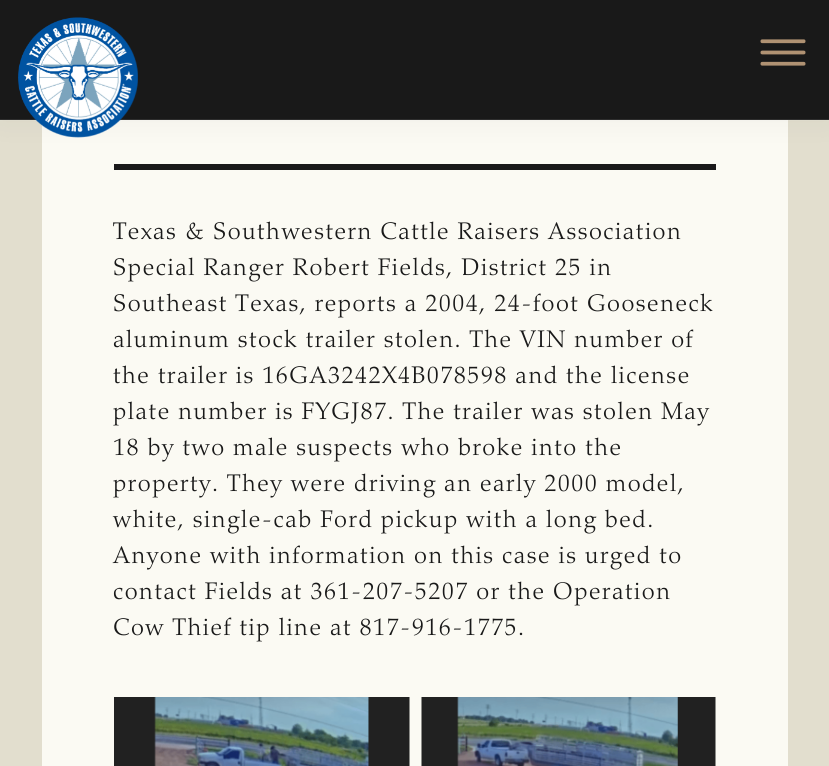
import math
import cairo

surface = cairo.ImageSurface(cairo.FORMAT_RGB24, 829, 766)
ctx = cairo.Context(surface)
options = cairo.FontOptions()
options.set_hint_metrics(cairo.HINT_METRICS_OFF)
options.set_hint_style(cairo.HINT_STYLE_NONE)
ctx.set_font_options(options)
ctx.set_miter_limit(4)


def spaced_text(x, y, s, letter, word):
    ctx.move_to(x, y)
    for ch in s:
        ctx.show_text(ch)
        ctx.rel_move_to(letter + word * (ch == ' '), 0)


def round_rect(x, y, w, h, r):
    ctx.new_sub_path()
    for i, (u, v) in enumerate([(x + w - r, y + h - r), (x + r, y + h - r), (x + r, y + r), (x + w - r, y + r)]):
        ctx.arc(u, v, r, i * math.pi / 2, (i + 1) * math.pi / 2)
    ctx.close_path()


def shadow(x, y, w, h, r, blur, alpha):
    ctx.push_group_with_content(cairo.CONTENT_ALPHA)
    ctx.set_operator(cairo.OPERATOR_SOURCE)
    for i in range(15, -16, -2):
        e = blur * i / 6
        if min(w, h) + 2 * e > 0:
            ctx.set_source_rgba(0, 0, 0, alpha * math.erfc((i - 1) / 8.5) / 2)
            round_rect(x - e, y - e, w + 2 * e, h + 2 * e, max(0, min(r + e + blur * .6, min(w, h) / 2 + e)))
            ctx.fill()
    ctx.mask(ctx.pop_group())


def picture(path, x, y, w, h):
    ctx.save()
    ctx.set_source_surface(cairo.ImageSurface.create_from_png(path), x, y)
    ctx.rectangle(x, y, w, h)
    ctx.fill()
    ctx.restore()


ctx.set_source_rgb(0.886, 0.871, 0.808)
ctx.paint()
ctx.set_source_rgb(0.984, 0.98, 0.953)
ctx.rectangle(42, 120, 746, 646)
ctx.fill()
ctx.set_source_rgb(0.098, 0.098, 0.098)
ctx.rectangle(114, 164, 602, 6)
ctx.fill()
ctx.set_source_rgb(0, 0, 0)
shadow(0, 0, 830, 120, 0, 15, 0.05)
ctx.set_source_rgb(0.098, 0.098, 0.098)
ctx.rectangle(0, 0, 829, 120)
ctx.fill()
ctx.set_source_rgba(0.922, 0.914, 0.91, 0.1)
ctx.rectangle(0, 119, 829, 2)
ctx.fill()
picture("img1.png", 18, 17, 120, 121)
picture("img2.png", 760, 39, 46, 27)
ctx.select_font_face("Palatino Light")
ctx.set_font_size(24)
ctx.set_source_rgb(0.098, 0.098, 0.098)
spaced_text(113, 239, "Texas & Southwestern Cattle Raisers Association", 1.5, 0)
spaced_text(113, 275, "Special Ranger Robert Fields, District 25 in", 1.5, 0)
spaced_text(113, 311, "Southeast Texas, reports a 2004, 24-foot Gooseneck", 1.5, 0)
spaced_text(113, 347, "aluminum stock trailer stolen. The VIN number of", 1.5, 0)
spaced_text(113, 383, "the trailer is 16GA3242X4B078598 and the license", 1.5, 0)
spaced_text(113, 419, "plate number is FYGJ87. The trailer was stolen May", 1.5, 0)
spaced_text(113, 455, "18 by two male suspects who broke into the", 1.5, 0)
spaced_text(113, 491, "property. They were driving an early 2000 model,", 1.5, 0)
spaced_text(113, 527, "white, single-cab Ford pickup with a long bed.", 1.5, 0)
spaced_text(113, 563, "Anyone with information on this case is urged to", 1.5, 0)
spaced_text(113, 599, "contact Fields at 361-207-5207 or the Operation", 1.5, 0)
spaced_text(113, 635, "Cow Thief tip line at 817-916-1775.", 1.5, 0)
picture("img3.png", 114, 697, 296, 69)
picture("img4.png", 421, 697, 295, 69)
surface.write_to_png("page.png")
